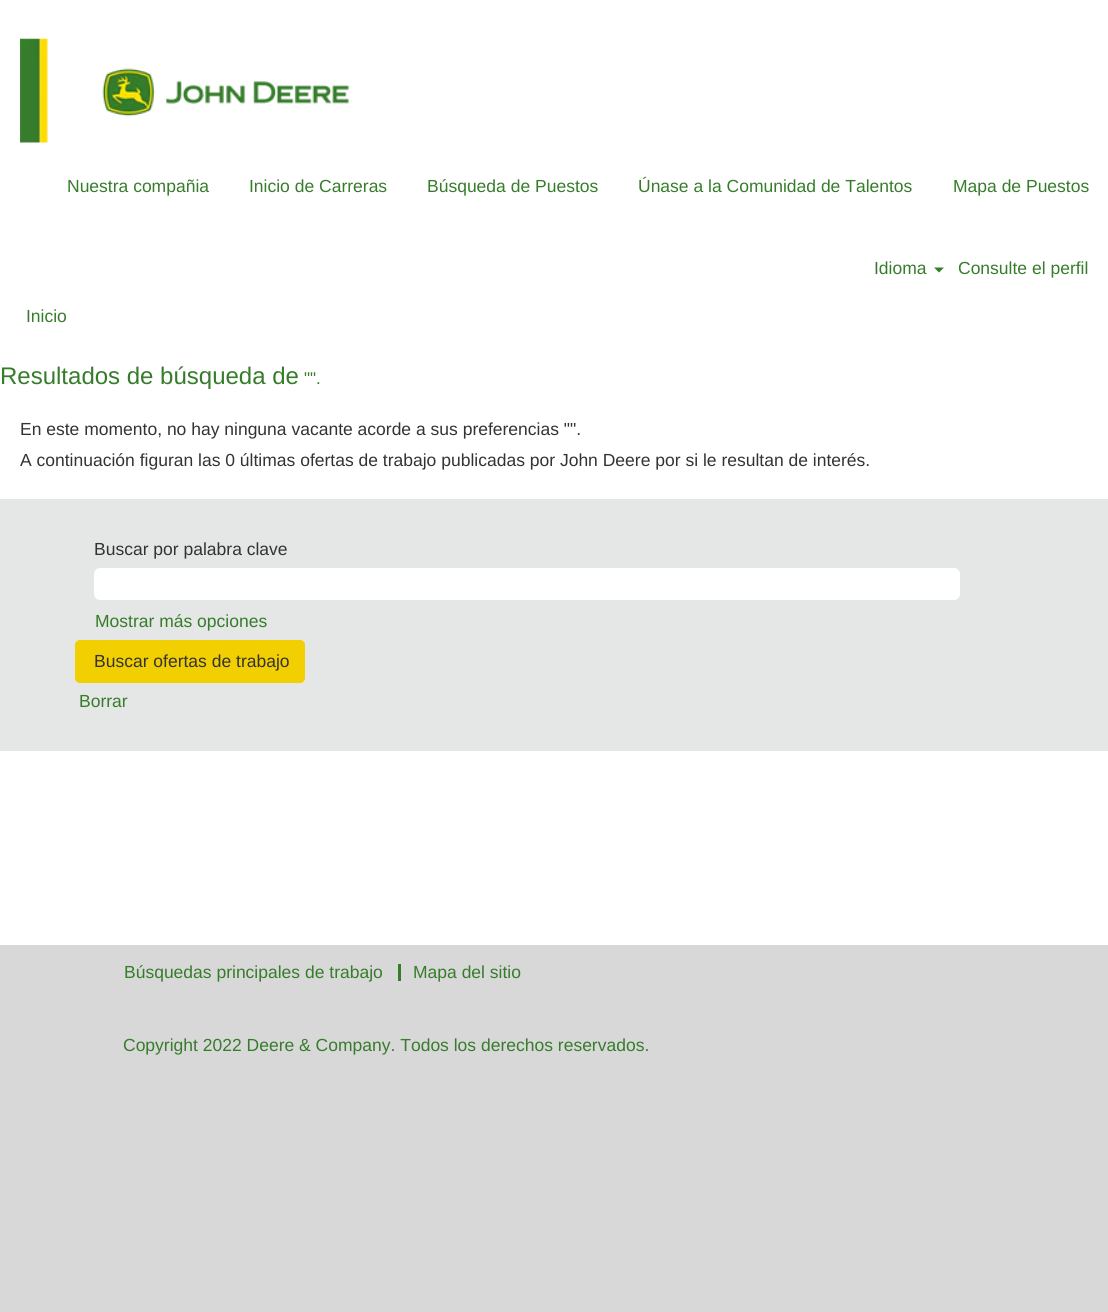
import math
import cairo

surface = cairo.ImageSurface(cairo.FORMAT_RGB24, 1108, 1312)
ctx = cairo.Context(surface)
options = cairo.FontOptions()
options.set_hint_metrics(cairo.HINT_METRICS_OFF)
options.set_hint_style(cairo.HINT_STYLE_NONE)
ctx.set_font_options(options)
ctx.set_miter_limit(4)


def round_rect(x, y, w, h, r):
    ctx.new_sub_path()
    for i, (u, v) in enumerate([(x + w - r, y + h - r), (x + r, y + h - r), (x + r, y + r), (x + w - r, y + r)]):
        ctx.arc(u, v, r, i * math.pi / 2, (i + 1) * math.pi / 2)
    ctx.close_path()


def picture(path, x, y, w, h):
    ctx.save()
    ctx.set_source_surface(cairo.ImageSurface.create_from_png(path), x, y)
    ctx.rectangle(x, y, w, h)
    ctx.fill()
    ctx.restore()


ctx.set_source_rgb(0.847, 0.847, 0.847)
ctx.paint()
ctx.set_source_rgb(1, 1, 1)
ctx.rectangle(0, 0, 1108, 945)
ctx.fill()
picture("img1.png", 20, 38, 329, 105)
ctx.select_font_face("Liberation Sans")
ctx.set_font_size(17.5)
ctx.set_source_rgb(0.212, 0.486, 0.169)
ctx.move_to(67, 192)
ctx.show_text("Nuestra compañia")
ctx.move_to(249, 192)
ctx.show_text("Inicio de Carreras")
ctx.move_to(427, 192)
ctx.show_text("Búsqueda de Puestos")
ctx.move_to(638, 192)
ctx.show_text("Únase a la Comunidad de Talentos")
ctx.move_to(953, 192)
ctx.show_text("Mapa de Puestos")
ctx.move_to(874, 274)
ctx.show_text("Idioma")
ctx.new_path()
ctx.move_to(934, 267.5)
ctx.line_to(944, 267.5)
ctx.line_to(939, 272.5)
ctx.close_path()
ctx.fill()
ctx.move_to(958, 274)
ctx.show_text("Consulte el perfil")
ctx.move_to(26, 322)
ctx.show_text("Inicio")
ctx.set_font_size(24)
ctx.move_to(0, 384)
ctx.show_text("Resultados de búsqueda de")
ctx.set_font_size(17)
ctx.move_to(304, 384)
ctx.show_text("\"\".")
ctx.set_font_size(17.5)
ctx.set_source_rgb(0.2, 0.2, 0.2)
ctx.move_to(20, 435)
ctx.show_text("En este momento, no hay ninguna vacante acorde a sus preferencias \"\".")
ctx.move_to(20, 466)
ctx.show_text("A continuación figuran las 0 últimas ofertas de trabajo publicadas por John Deere por si le resultan de interés.")
ctx.set_source_rgb(0.898, 0.902, 0.902)
ctx.rectangle(0, 499, 1108, 252)
ctx.fill()
ctx.set_source_rgb(0.2, 0.2, 0.2)
ctx.move_to(94, 555)
ctx.show_text("Buscar por palabra clave")
ctx.set_source_rgb(1, 1, 1)
round_rect(95.5, 569.5, 863, 29, 4.5)
ctx.fill_preserve()
ctx.set_line_width(3)
ctx.stroke()
ctx.set_source_rgb(0.212, 0.486, 0.169)
ctx.move_to(95, 627)
ctx.show_text("Mostrar más opciones")
ctx.set_source_rgb(0.945, 0.812, 0)
round_rect(75.5, 640.5, 229, 42, 4.5)
ctx.fill_preserve()
ctx.set_line_width(1)
ctx.stroke()
ctx.set_source_rgb(0.2, 0.2, 0.2)
ctx.move_to(94, 667)
ctx.show_text("Buscar ofertas de trabajo")
ctx.set_source_rgb(0.212, 0.486, 0.169)
ctx.move_to(79, 707)
ctx.show_text("Borrar")
ctx.rectangle(398, 964, 3, 17)
ctx.fill()
ctx.move_to(124, 978)
ctx.show_text("Búsquedas principales de trabajo")
ctx.move_to(413, 978)
ctx.show_text("Mapa del sitio")
ctx.move_to(123, 1051)
ctx.show_text("Copyright 2022 Deere & Company. Todos los derechos reservados.")
surface.write_to_png("page.png")
